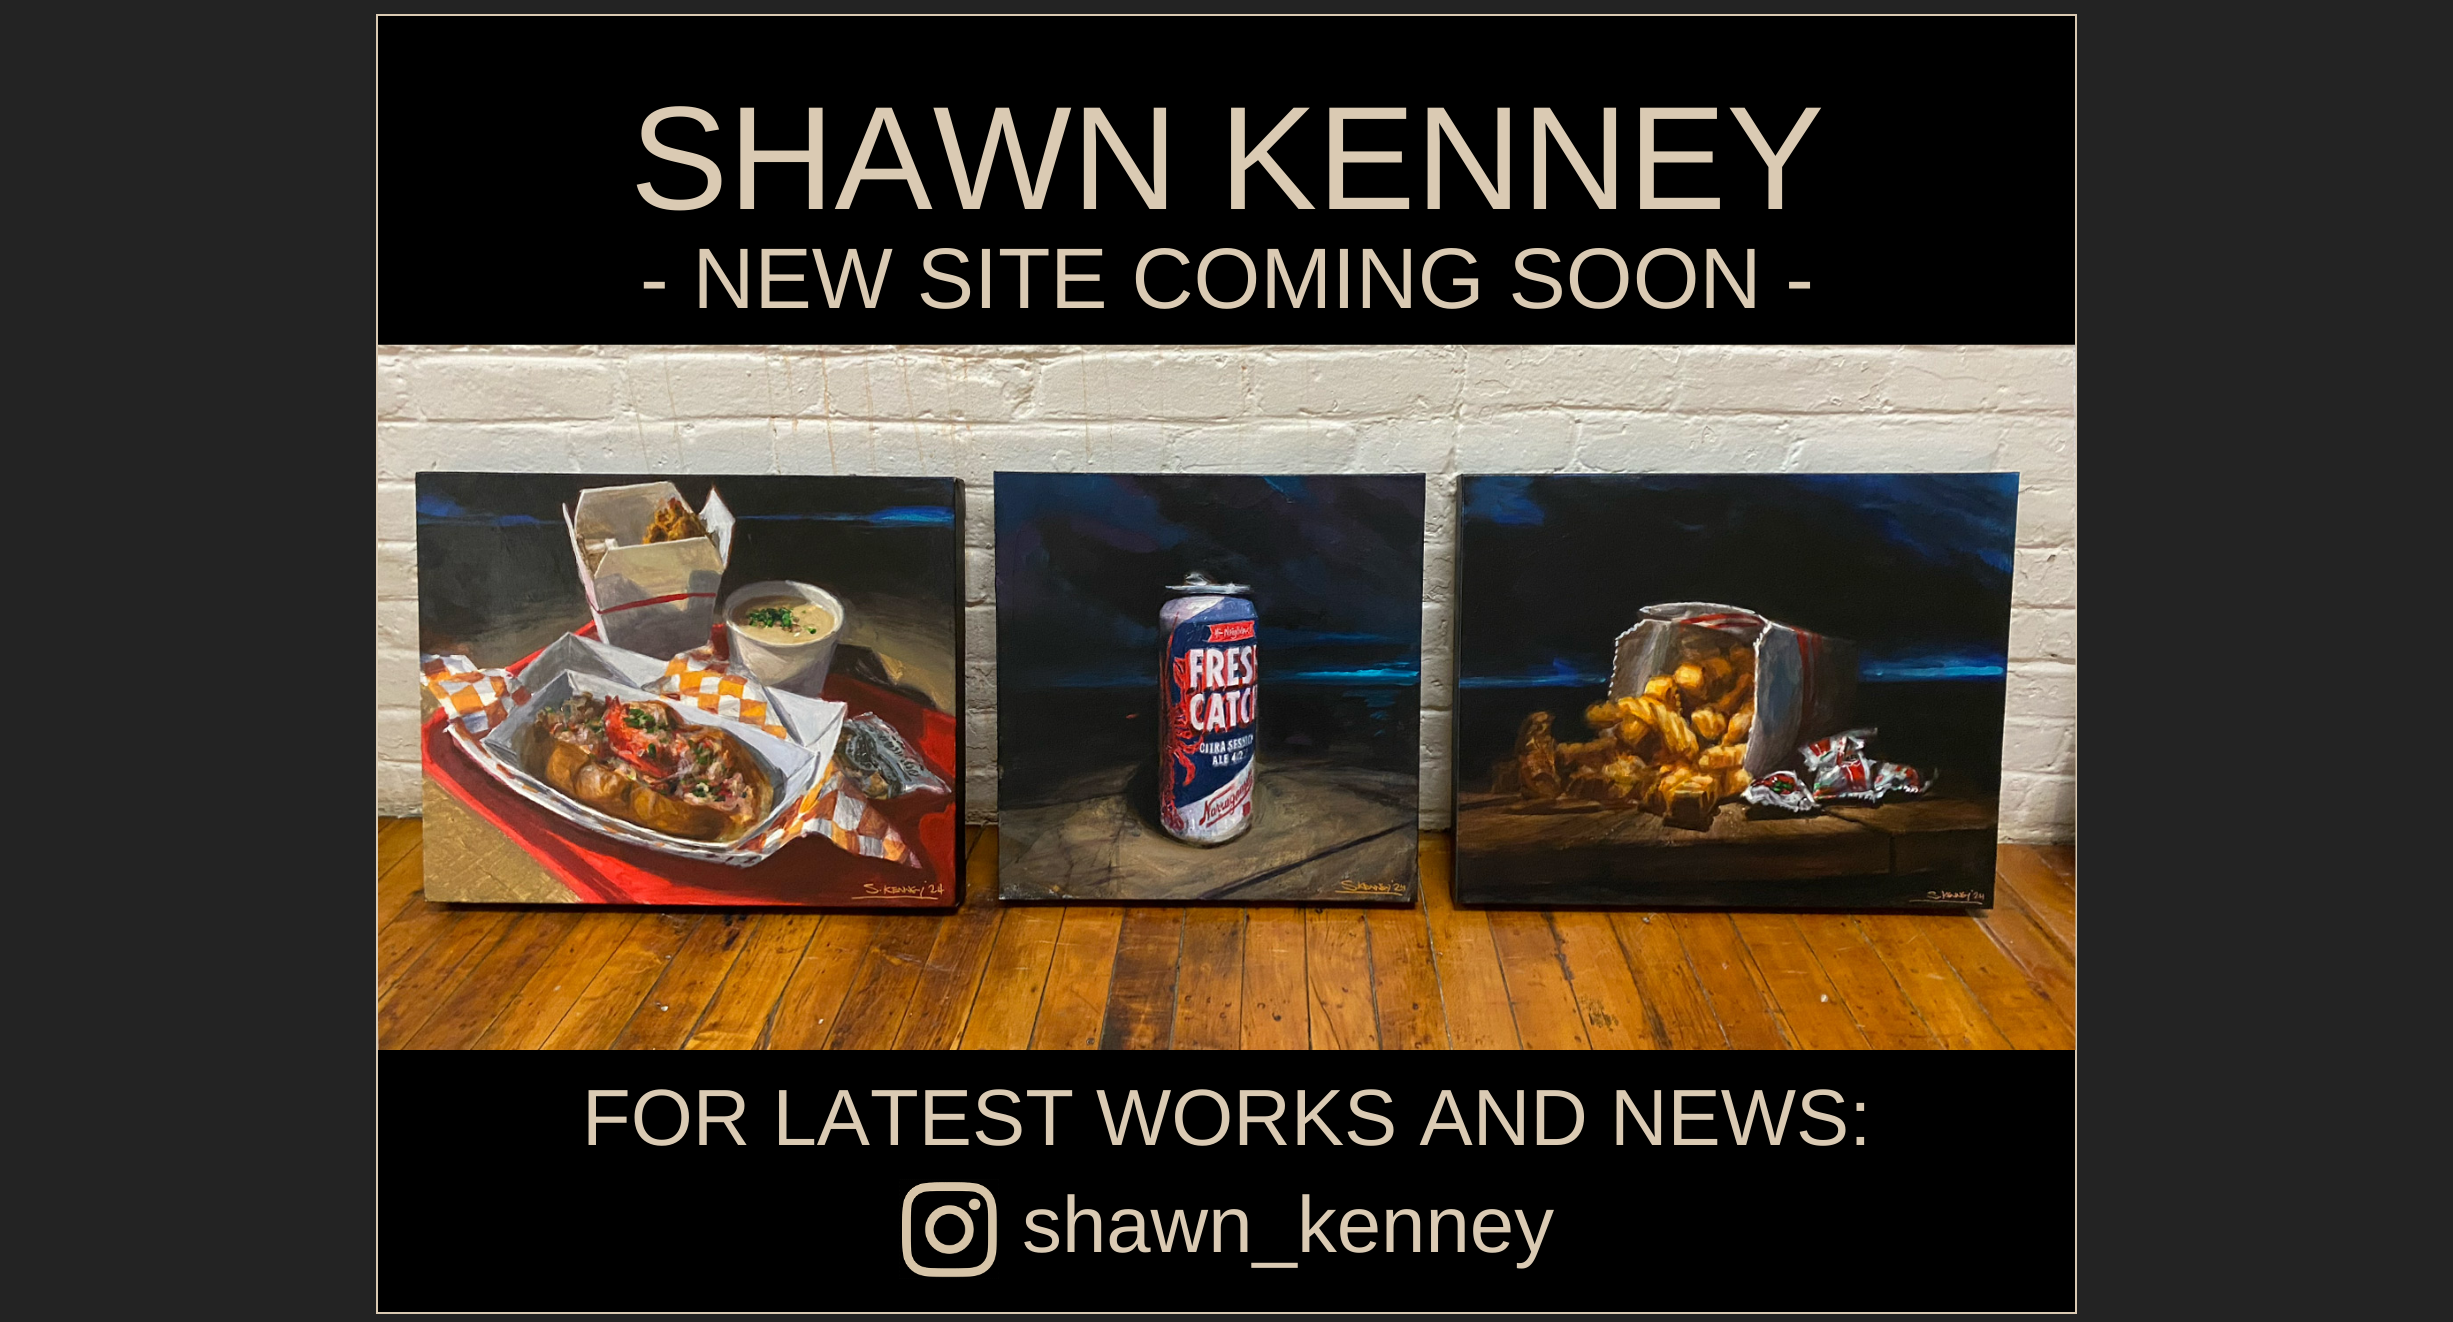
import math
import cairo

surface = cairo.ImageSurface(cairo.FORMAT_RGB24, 2453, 1322)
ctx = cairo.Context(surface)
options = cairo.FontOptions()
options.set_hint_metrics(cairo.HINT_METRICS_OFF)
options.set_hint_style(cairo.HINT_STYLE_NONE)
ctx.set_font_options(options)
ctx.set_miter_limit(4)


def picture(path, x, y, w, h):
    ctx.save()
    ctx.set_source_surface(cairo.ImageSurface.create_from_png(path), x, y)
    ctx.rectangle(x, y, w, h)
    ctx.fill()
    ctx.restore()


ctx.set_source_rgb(0.137, 0.137, 0.137)
ctx.paint()
ctx.set_source_rgb(0, 0, 0)
ctx.rectangle(377, 15, 1699, 1298)
ctx.fill_preserve()
ctx.set_source_rgb(0.855, 0.792, 0.702)
ctx.stroke()
ctx.select_font_face("Liberation Sans")
ctx.set_font_size(147.25)
ctx.move_to(630, 209)
ctx.show_text("SHAWN KENNEY")
ctx.set_font_size(85.9)
ctx.move_to(640, 308)
ctx.show_text("- NEW SITE COMING SOON -")
picture("img1.png", 378, 344, 1698, 706)
ctx.set_font_size(79.75)
ctx.move_to(582, 1145)
ctx.show_text("FOR LATEST WORKS AND NEWS:")
picture("img2.png", 899, 1179, 100, 100)
ctx.move_to(1022, 1252)
ctx.show_text("shawn_kenney")
surface.write_to_png("page.png")
